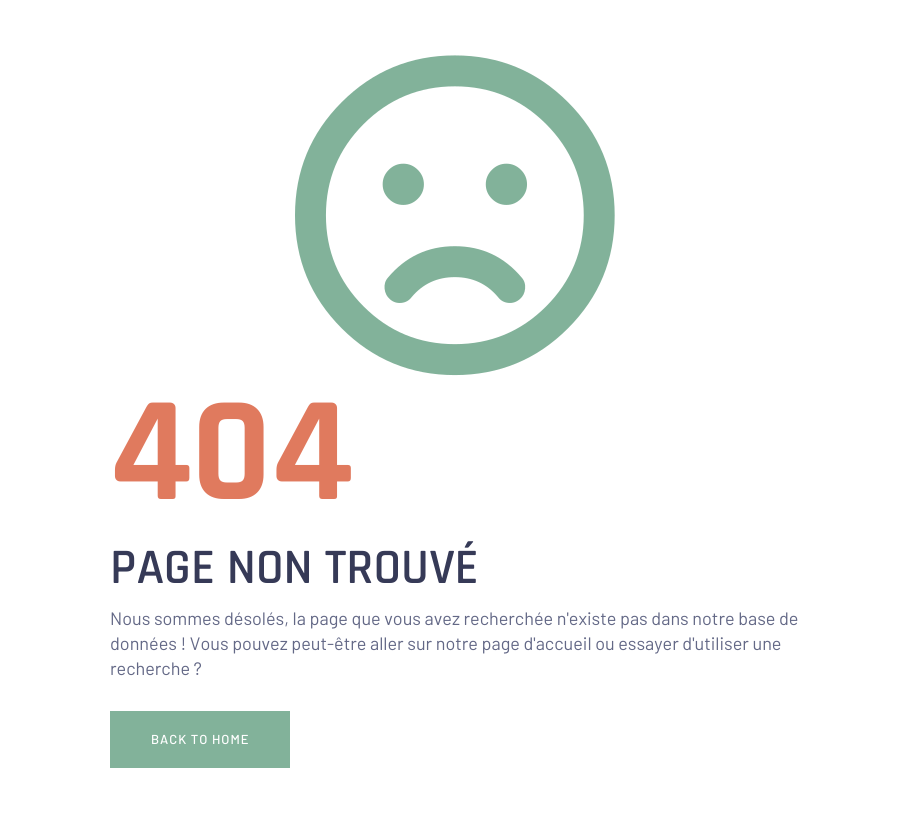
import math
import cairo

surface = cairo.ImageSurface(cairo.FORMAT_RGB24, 910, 818)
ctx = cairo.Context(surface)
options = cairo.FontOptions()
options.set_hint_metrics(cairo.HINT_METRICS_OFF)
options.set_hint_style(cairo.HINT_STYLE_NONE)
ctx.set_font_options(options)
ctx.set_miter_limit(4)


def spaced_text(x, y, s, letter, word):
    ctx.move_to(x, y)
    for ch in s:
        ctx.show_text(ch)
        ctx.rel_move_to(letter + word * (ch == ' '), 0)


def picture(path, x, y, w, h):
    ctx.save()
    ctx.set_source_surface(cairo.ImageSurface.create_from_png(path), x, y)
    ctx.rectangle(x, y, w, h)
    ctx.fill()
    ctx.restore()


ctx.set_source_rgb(1, 1, 1)
ctx.paint()
picture("img1.png", 295, 55, 320, 321)
ctx.select_font_face("Rajdhani", cairo.FONT_SLANT_NORMAL, cairo.FONT_WEIGHT_BOLD)
ctx.set_font_size(150)
ctx.set_source_rgb(0.878, 0.478, 0.369)
ctx.move_to(110, 499)
ctx.show_text("404")
ctx.select_font_face("Rajdhani SemiBold")
ctx.set_font_size(50)
ctx.set_source_rgb(0.212, 0.227, 0.341)
ctx.move_to(110, 583)
ctx.show_text("PAGE NON TROUVÉ")
ctx.select_font_face("Barlow")
ctx.set_font_size(18)
ctx.set_source_rgb(0.388, 0.408, 0.525)
ctx.move_to(110, 625)
ctx.show_text("Nous sommes désolés, la page que vous avez recherchée n'existe pas dans notre base de")
ctx.move_to(110, 650)
ctx.show_text("données ! Vous pouvez peut-être aller sur notre page d'accueil ou essayer d'utiliser une")
ctx.move_to(110, 675)
ctx.show_text("recherche ?")
ctx.set_source_rgb(0.51, 0.698, 0.604)
ctx.rectangle(110, 711, 180, 57)
ctx.fill()
ctx.select_font_face("Barlow Medium")
ctx.set_font_size(13)
ctx.set_source_rgb(1, 1, 1)
spaced_text(151, 744, "BACK TO HOME", 1, 0)
surface.write_to_png("page.png")
